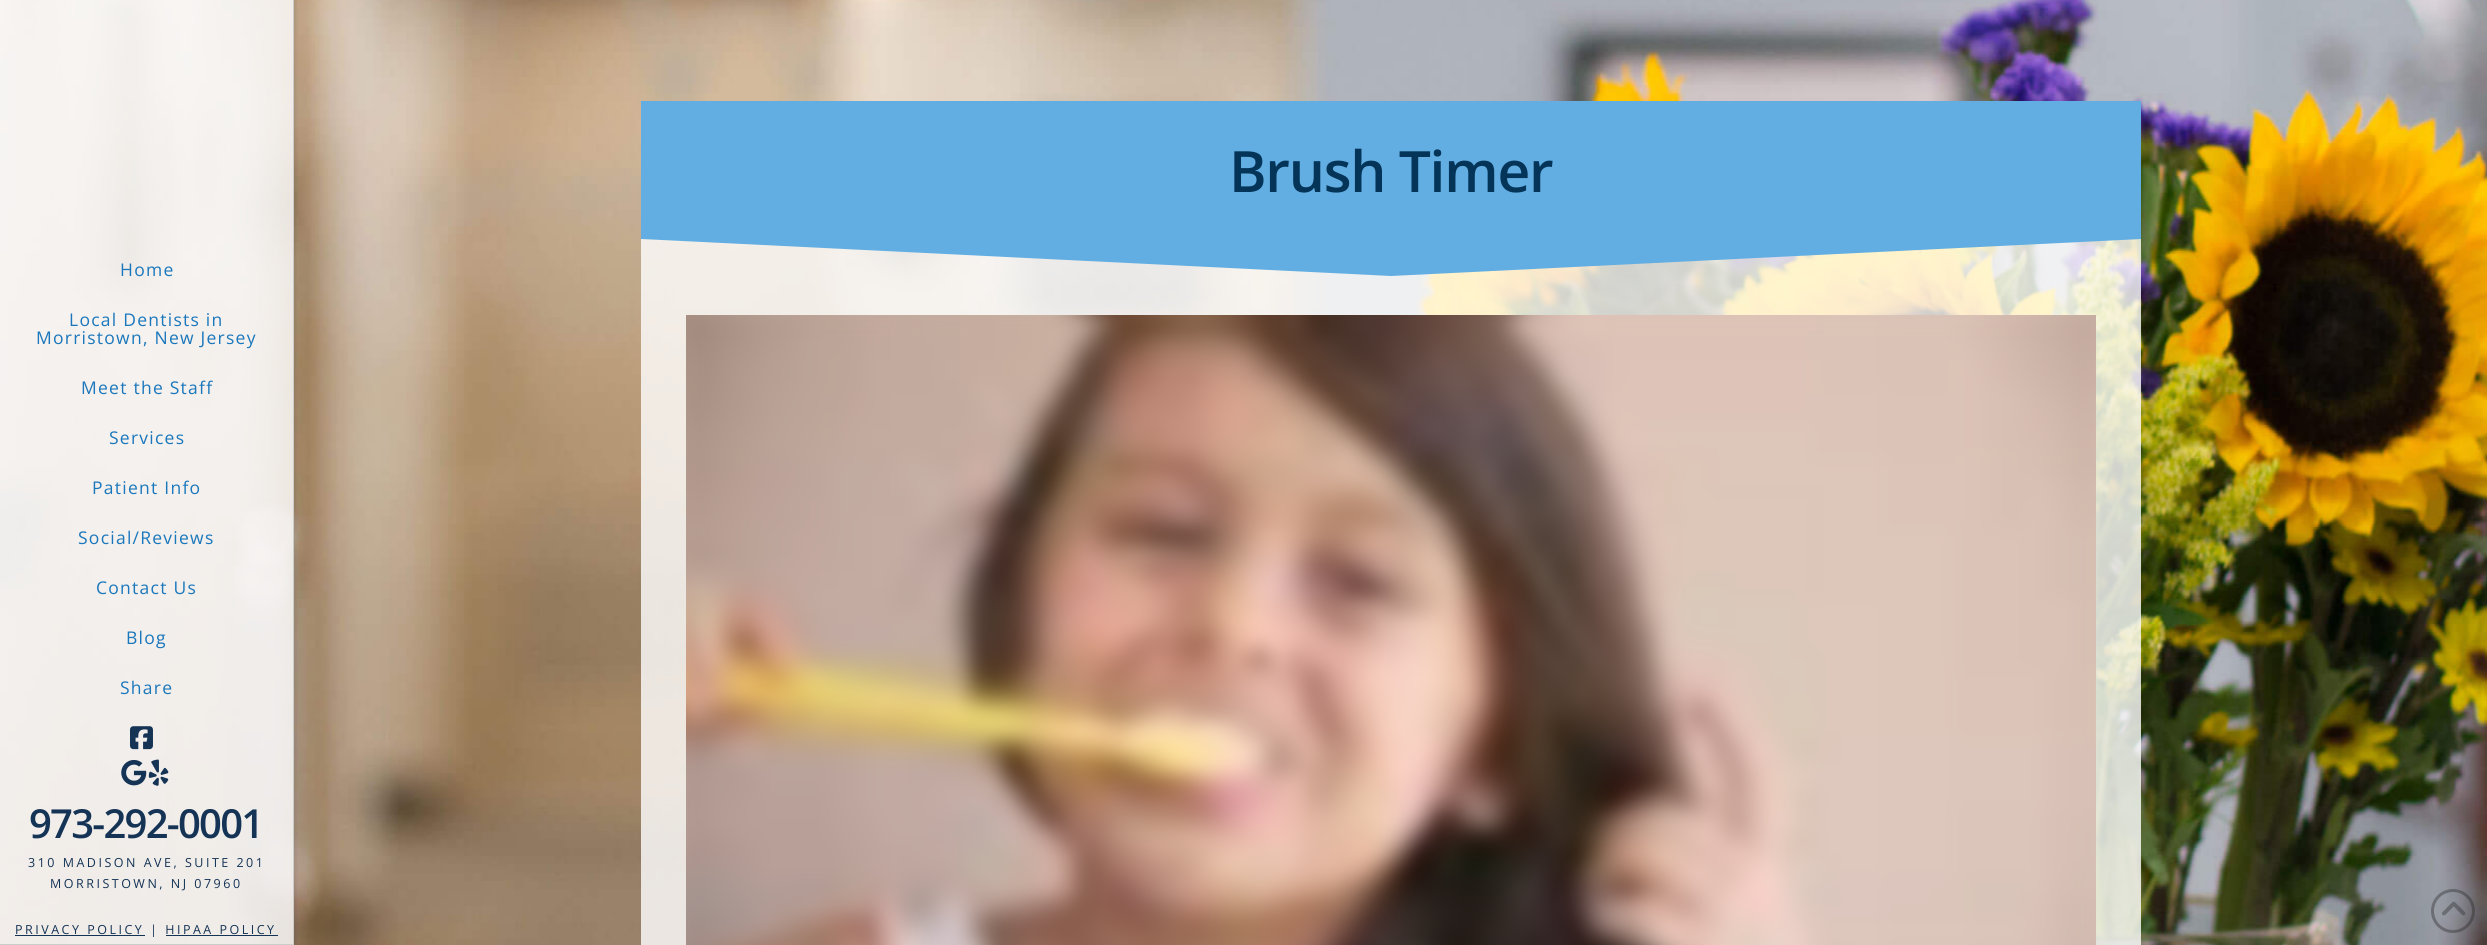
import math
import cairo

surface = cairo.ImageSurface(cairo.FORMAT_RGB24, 2487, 945)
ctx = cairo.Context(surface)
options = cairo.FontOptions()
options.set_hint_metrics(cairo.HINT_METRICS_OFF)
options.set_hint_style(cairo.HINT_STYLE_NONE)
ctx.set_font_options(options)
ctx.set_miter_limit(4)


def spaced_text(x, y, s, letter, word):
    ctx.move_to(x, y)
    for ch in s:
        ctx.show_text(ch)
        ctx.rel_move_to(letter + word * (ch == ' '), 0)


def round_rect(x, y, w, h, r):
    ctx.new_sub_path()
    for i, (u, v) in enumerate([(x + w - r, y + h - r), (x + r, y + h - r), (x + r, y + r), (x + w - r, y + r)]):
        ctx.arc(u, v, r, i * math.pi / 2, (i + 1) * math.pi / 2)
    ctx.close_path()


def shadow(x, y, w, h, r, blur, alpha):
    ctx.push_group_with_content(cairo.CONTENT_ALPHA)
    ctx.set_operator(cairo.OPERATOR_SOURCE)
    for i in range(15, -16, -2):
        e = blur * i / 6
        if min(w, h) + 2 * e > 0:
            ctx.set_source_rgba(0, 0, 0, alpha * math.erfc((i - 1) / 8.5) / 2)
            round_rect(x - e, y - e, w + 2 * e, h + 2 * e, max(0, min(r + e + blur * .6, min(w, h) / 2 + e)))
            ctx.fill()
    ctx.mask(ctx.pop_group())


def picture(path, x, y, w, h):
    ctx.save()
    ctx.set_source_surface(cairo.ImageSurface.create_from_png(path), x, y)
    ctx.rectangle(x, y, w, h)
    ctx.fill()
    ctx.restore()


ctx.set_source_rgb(1, 1, 1)
ctx.paint()
picture("img1.png", 0, 0, 2487, 945)
ctx.set_source_rgba(1, 1, 1, 0.8)
ctx.rectangle(641, 239, 1500, 706)
ctx.fill()
ctx.set_source_rgb(0.384, 0.682, 0.886)
ctx.rectangle(641, 101, 1500, 138)
ctx.fill()
ctx.select_font_face("Open Sans SemiBold")
ctx.set_font_size(57)
ctx.set_source_rgb(0.016, 0.204, 0.345)
spaced_text(1229, 192, "Brush Timer", -1.25, 0)
ctx.set_source_rgb(0.384, 0.682, 0.886)
ctx.new_path()
ctx.move_to(1391, 276)
ctx.line_to(2141, 239)
ctx.line_to(641, 239)
ctx.close_path()
ctx.fill()
picture("img2.png", 686, 315, 1410, 630)
ctx.save()
ctx.rectangle(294, 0, 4, 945)
ctx.clip()
ctx.set_source_rgb(0, 0, 0)
shadow(3, 0, 293, 945, 0, 2.5, 0.1)
ctx.restore()
ctx.set_source_rgba(1, 1, 1, 0.8)
ctx.rectangle(0, 0, 293, 944)
ctx.fill()
ctx.set_source_rgb(0.8, 0.8, 0.8)
ctx.rectangle(293, 0, 1, 945)
ctx.fill()
ctx.rectangle(0, 944, 294, 1)
ctx.fill()
ctx.select_font_face("Open Sans")
ctx.set_font_size(17.5)
ctx.set_source_rgb(0.102, 0.467, 0.737)
spaced_text(120, 276, "Home", 1.25, 0)
spaced_text(69, 326, "Local Dentists in", 1.25, 0)
spaced_text(36, 344, "Morristown, New Jersey", 1.25, 0)
spaced_text(81, 394, "Meet the Staff", 1.25, 0)
spaced_text(109, 444, "Services", 1.25, 0)
spaced_text(92, 494, "Patient Info", 1.25, 0)
spaced_text(78, 544, "Social/Reviews", 1.25, 0)
spaced_text(96, 594, "Contact Us", 1.25, 0)
spaced_text(126, 644, "Blog", 1.25, 0)
spaced_text(120, 694, "Share", 1.25, 0)
picture("img3.png", 130, 726, 23, 24)
picture("img4.png", 121, 759, 26, 27)
picture("img5.png", 148, 759, 21, 27)
ctx.select_font_face("Open Sans SemiBold")
ctx.set_font_size(40)
ctx.set_source_rgb(0.082, 0.2, 0.333)
spaced_text(29, 838, "973-292-0001", -1.75, 0)
ctx.select_font_face("Open Sans")
ctx.set_font_size(12.5)
spaced_text(28, 867, "310 MADISON AVE, SUITE 201", 2.5, 0)
spaced_text(50, 888, "MORRISTOWN, NJ 07960", 2.5, 0)
ctx.rectangle(15, 935, 130, 1)
ctx.fill()
spaced_text(15, 934, "PRIVACY POLICY | HIPAA POLICY", 2.5, 0)
ctx.rectangle(166, 935, 112, 1)
ctx.fill()
ctx.arc(2453, 911, 20.5, 0, 2 * math.pi)
ctx.set_source_rgba(0.153, 0.153, 0.153, 0.38)
ctx.set_line_width(3)
ctx.stroke()
picture("img6.png", 2442, 901, 24, 15)
surface.write_to_png("page.png")
